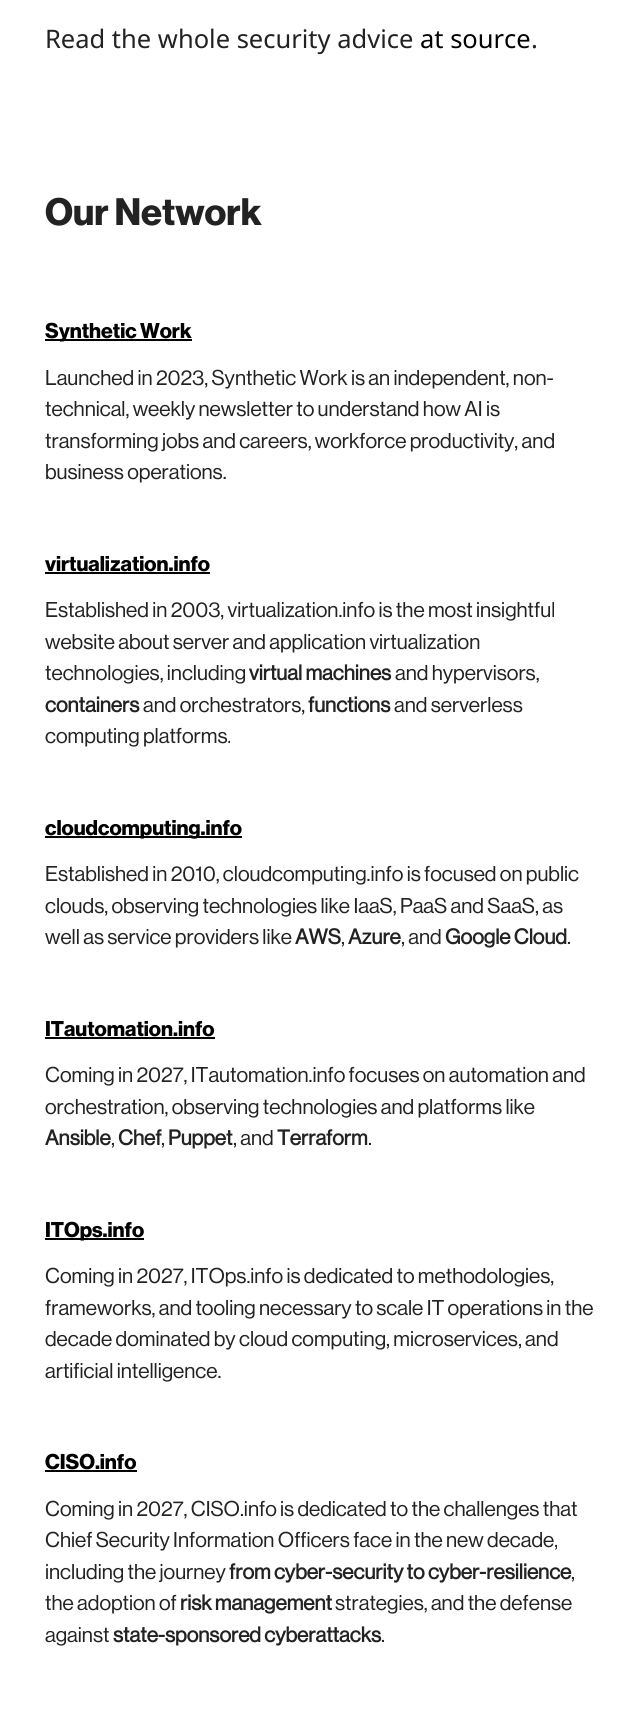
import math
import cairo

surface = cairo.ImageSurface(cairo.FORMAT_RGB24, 644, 1727)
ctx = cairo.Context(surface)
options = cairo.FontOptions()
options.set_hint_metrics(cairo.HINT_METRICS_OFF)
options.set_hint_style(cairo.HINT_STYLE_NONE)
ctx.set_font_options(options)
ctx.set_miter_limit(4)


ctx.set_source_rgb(1, 1, 1)
ctx.paint()
ctx.select_font_face("Noto Sans")
ctx.set_font_size(25.5)
ctx.set_source_rgb(0.133, 0.133, 0.133)
ctx.move_to(45, 48)
ctx.show_text("Read the whole security advice")
ctx.set_source_rgb(0, 0, 0)
ctx.move_to(420, 48)
ctx.show_text("at source")
ctx.set_source_rgb(0.133, 0.133, 0.133)
ctx.move_to(531, 48)
ctx.show_text(".")
ctx.select_font_face("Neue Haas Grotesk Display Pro", cairo.FONT_SLANT_NORMAL, cairo.FONT_WEIGHT_BOLD)
ctx.set_font_size(37.5)
ctx.move_to(45, 225)
ctx.show_text("Our Network")
ctx.set_source_rgb(0, 0, 0)
ctx.rectangle(45, 339, 147, 2)
ctx.fill()
ctx.set_font_size(21)
ctx.move_to(45, 338)
ctx.show_text("Synthetic Work")
ctx.select_font_face("Neue Haas Grotesk Display Pro")
ctx.set_source_rgb(0.133, 0.133, 0.133)
ctx.move_to(45, 385)
ctx.show_text("Launched in 2023, Synthetic Work is an independent, non-")
ctx.move_to(45, 416)
ctx.show_text("technical, weekly newsletter to understand how AI is")
ctx.move_to(45, 448)
ctx.show_text("transforming jobs and careers, workforce productivity, and")
ctx.move_to(45, 479)
ctx.show_text("business operations.")
ctx.select_font_face("Neue Haas Grotesk Display Pro", cairo.FONT_SLANT_NORMAL, cairo.FONT_WEIGHT_BOLD)
ctx.set_source_rgb(0, 0, 0)
ctx.move_to(45, 571)
ctx.show_text("virtualization.info")
ctx.rectangle(45, 572, 165, 2)
ctx.fill()
ctx.select_font_face("Neue Haas Grotesk Display Pro")
ctx.set_source_rgb(0.133, 0.133, 0.133)
ctx.move_to(45, 617)
ctx.show_text("Established in 2003, virtualization.info is the most insightful")
ctx.move_to(45, 649)
ctx.show_text("website about server and application virtualization")
ctx.move_to(45, 680)
ctx.show_text("technologies, including")
ctx.select_font_face("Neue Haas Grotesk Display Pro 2", cairo.FONT_SLANT_NORMAL, cairo.FONT_WEIGHT_BOLD)
ctx.move_to(249, 680)
ctx.show_text("virtual machines")
ctx.select_font_face("Neue Haas Grotesk Display Pro")
ctx.move_to(395, 680)
ctx.show_text("and hypervisors,")
ctx.select_font_face("Neue Haas Grotesk Display Pro 2", cairo.FONT_SLANT_NORMAL, cairo.FONT_WEIGHT_BOLD)
ctx.move_to(45, 712)
ctx.show_text("containers")
ctx.select_font_face("Neue Haas Grotesk Display Pro")
ctx.move_to(143, 712)
ctx.show_text("and orchestrators,")
ctx.select_font_face("Neue Haas Grotesk Display Pro 2", cairo.FONT_SLANT_NORMAL, cairo.FONT_WEIGHT_BOLD)
ctx.move_to(308, 712)
ctx.show_text("functions")
ctx.select_font_face("Neue Haas Grotesk Display Pro")
ctx.move_to(394, 712)
ctx.show_text("and serverless")
ctx.move_to(45, 743)
ctx.show_text("computing platforms.")
ctx.set_source_rgb(0, 0, 0)
ctx.rectangle(45, 836, 197, 2)
ctx.fill()
ctx.select_font_face("Neue Haas Grotesk Display Pro", cairo.FONT_SLANT_NORMAL, cairo.FONT_WEIGHT_BOLD)
ctx.move_to(45, 835)
ctx.show_text("cloudcomputing.info")
ctx.select_font_face("Neue Haas Grotesk Display Pro")
ctx.set_source_rgb(0.133, 0.133, 0.133)
ctx.move_to(45, 881)
ctx.show_text("Established in 2010, cloudcomputing.info is focused on public")
ctx.move_to(45, 913)
ctx.show_text("clouds, observing technologies like IaaS, PaaS and SaaS, as")
ctx.move_to(45, 944)
ctx.show_text("well as service providers like")
ctx.select_font_face("Neue Haas Grotesk Display Pro 2", cairo.FONT_SLANT_NORMAL, cairo.FONT_WEIGHT_BOLD)
ctx.move_to(295, 944)
ctx.show_text("AWS")
ctx.select_font_face("Neue Haas Grotesk Display Pro")
ctx.move_to(341, 944)
ctx.show_text(",")
ctx.select_font_face("Neue Haas Grotesk Display Pro 2", cairo.FONT_SLANT_NORMAL, cairo.FONT_WEIGHT_BOLD)
ctx.move_to(348, 944)
ctx.show_text("Azure")
ctx.select_font_face("Neue Haas Grotesk Display Pro")
ctx.move_to(401, 944)
ctx.show_text(", and")
ctx.select_font_face("Neue Haas Grotesk Display Pro 2", cairo.FONT_SLANT_NORMAL, cairo.FONT_WEIGHT_BOLD)
ctx.move_to(445, 944)
ctx.show_text("Google Cloud")
ctx.select_font_face("Neue Haas Grotesk Display Pro")
ctx.move_to(567, 944)
ctx.show_text(".")
ctx.select_font_face("Neue Haas Grotesk Display Pro", cairo.FONT_SLANT_NORMAL, cairo.FONT_WEIGHT_BOLD)
ctx.set_source_rgb(0, 0, 0)
ctx.move_to(45, 1036)
ctx.show_text("ITautomation.info")
ctx.rectangle(45, 1037, 170, 2)
ctx.fill()
ctx.select_font_face("Neue Haas Grotesk Display Pro")
ctx.set_source_rgb(0.133, 0.133, 0.133)
ctx.move_to(45, 1082)
ctx.show_text("Coming in 2027, ITautomation.info focuses on automation and")
ctx.move_to(45, 1114)
ctx.show_text("orchestration, observing technologies and platforms like")
ctx.select_font_face("Neue Haas Grotesk Display Pro 2", cairo.FONT_SLANT_NORMAL, cairo.FONT_WEIGHT_BOLD)
ctx.move_to(45, 1145)
ctx.show_text("Ansible")
ctx.select_font_face("Neue Haas Grotesk Display Pro")
ctx.move_to(111, 1145)
ctx.show_text(",")
ctx.select_font_face("Neue Haas Grotesk Display Pro 2", cairo.FONT_SLANT_NORMAL, cairo.FONT_WEIGHT_BOLD)
ctx.move_to(118, 1145)
ctx.show_text("Chef")
ctx.select_font_face("Neue Haas Grotesk Display Pro")
ctx.move_to(161, 1145)
ctx.show_text(",")
ctx.select_font_face("Neue Haas Grotesk Display Pro 2", cairo.FONT_SLANT_NORMAL, cairo.FONT_WEIGHT_BOLD)
ctx.move_to(168, 1145)
ctx.show_text("Puppet")
ctx.select_font_face("Neue Haas Grotesk Display Pro")
ctx.move_to(233, 1145)
ctx.show_text(", and")
ctx.select_font_face("Neue Haas Grotesk Display Pro 2", cairo.FONT_SLANT_NORMAL, cairo.FONT_WEIGHT_BOLD)
ctx.move_to(277, 1145)
ctx.show_text("Terraform")
ctx.select_font_face("Neue Haas Grotesk Display Pro")
ctx.move_to(368, 1145)
ctx.show_text(".")
ctx.set_source_rgb(0, 0, 0)
ctx.rectangle(45, 1238, 99, 2)
ctx.fill()
ctx.select_font_face("Neue Haas Grotesk Display Pro", cairo.FONT_SLANT_NORMAL, cairo.FONT_WEIGHT_BOLD)
ctx.move_to(45, 1237)
ctx.show_text("ITOps.info")
ctx.select_font_face("Neue Haas Grotesk Display Pro")
ctx.set_source_rgb(0.133, 0.133, 0.133)
ctx.move_to(45, 1283)
ctx.show_text("Coming in 2027, ITOps.info is dedicated to methodologies,")
ctx.move_to(45, 1315)
ctx.show_text("frameworks, and tooling necessary to scale IT operations in the")
ctx.move_to(45, 1346)
ctx.show_text("decade dominated by cloud computing, microservices, and")
ctx.move_to(45, 1378)
ctx.show_text("artificial intelligence.")
ctx.select_font_face("Neue Haas Grotesk Display Pro", cairo.FONT_SLANT_NORMAL, cairo.FONT_WEIGHT_BOLD)
ctx.set_source_rgb(0, 0, 0)
ctx.move_to(45, 1469)
ctx.show_text("CISO.info")
ctx.rectangle(45, 1470, 92, 2)
ctx.fill()
ctx.select_font_face("Neue Haas Grotesk Display Pro")
ctx.set_source_rgb(0.133, 0.133, 0.133)
ctx.move_to(45, 1516)
ctx.show_text("Coming in 2027, CISO.info is dedicated to the challenges that")
ctx.move_to(45, 1547)
ctx.show_text("Chief Security Information Officers face in the new decade,")
ctx.move_to(45, 1579)
ctx.show_text("including the journey")
ctx.select_font_face("Neue Haas Grotesk Display Pro 2", cairo.FONT_SLANT_NORMAL, cairo.FONT_WEIGHT_BOLD)
ctx.move_to(229, 1579)
ctx.show_text("from cyber-security to cyber-resilience")
ctx.select_font_face("Neue Haas Grotesk Display Pro")
ctx.move_to(571, 1579)
ctx.show_text(",")
ctx.move_to(45, 1610)
ctx.show_text("the adoption of")
ctx.select_font_face("Neue Haas Grotesk Display Pro 2", cairo.FONT_SLANT_NORMAL, cairo.FONT_WEIGHT_BOLD)
ctx.move_to(180, 1610)
ctx.show_text("risk management")
ctx.select_font_face("Neue Haas Grotesk Display Pro")
ctx.move_to(335, 1610)
ctx.show_text("strategies, and the defense")
ctx.move_to(45, 1642)
ctx.show_text("against")
ctx.select_font_face("Neue Haas Grotesk Display Pro 2", cairo.FONT_SLANT_NORMAL, cairo.FONT_WEIGHT_BOLD)
ctx.move_to(113, 1642)
ctx.show_text("state-sponsored cyberattacks")
ctx.select_font_face("Neue Haas Grotesk Display Pro")
ctx.move_to(381, 1642)
ctx.show_text(".")
surface.write_to_png("page.png")
